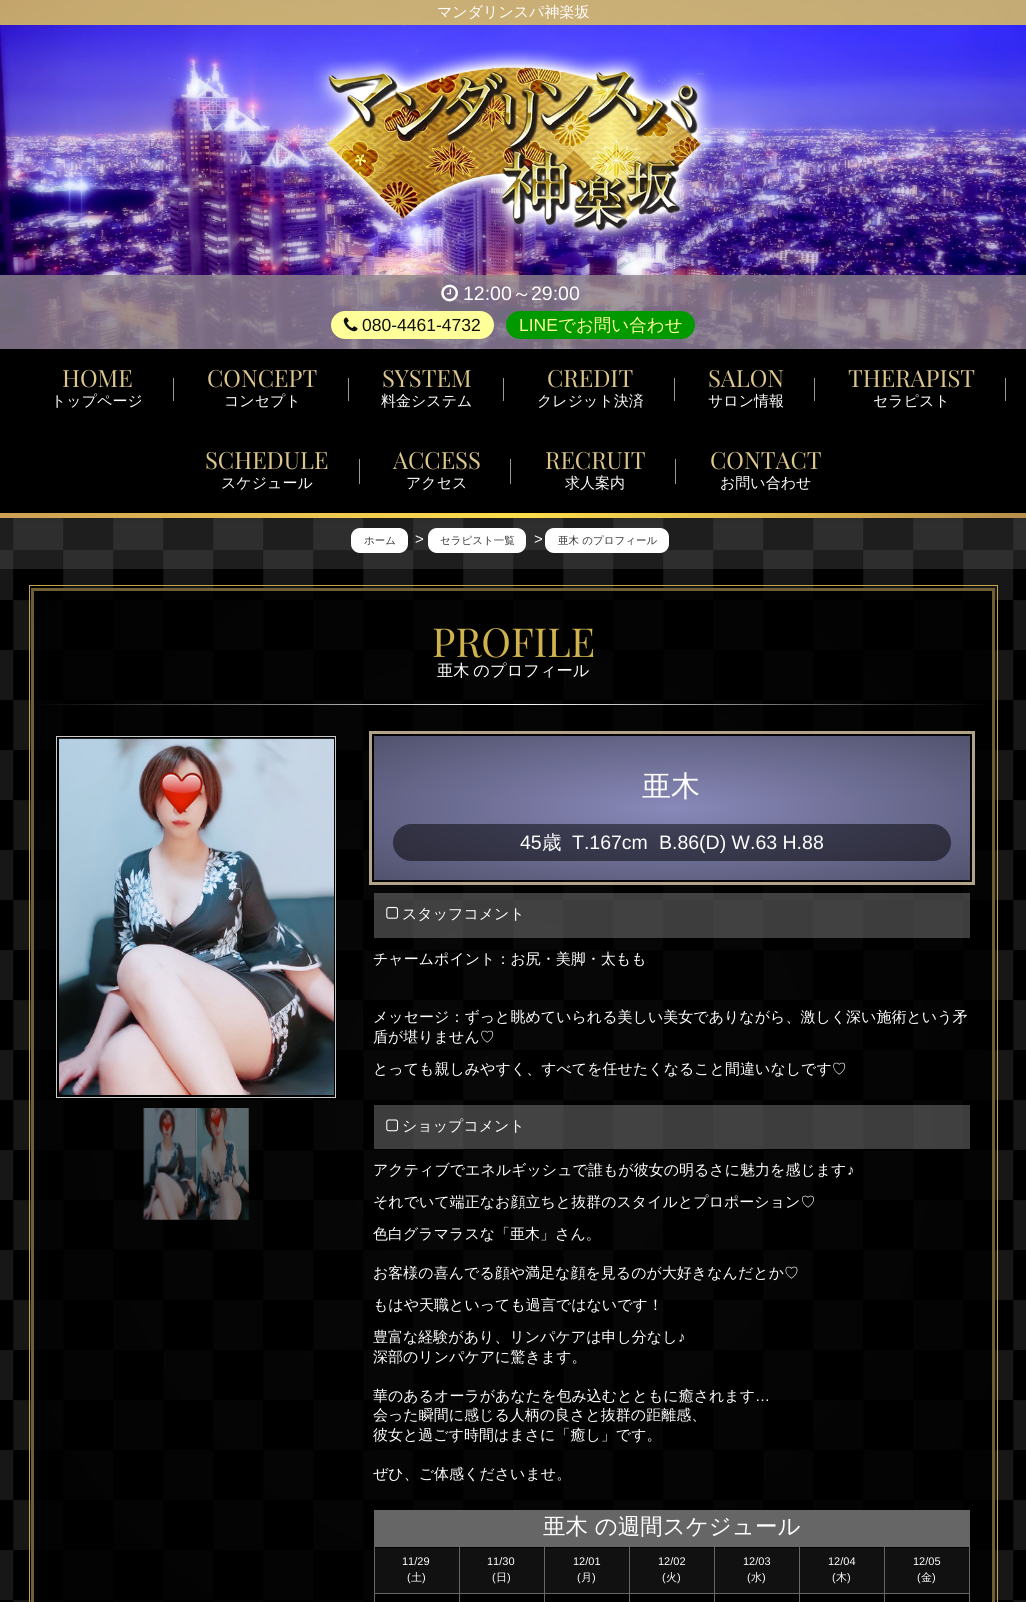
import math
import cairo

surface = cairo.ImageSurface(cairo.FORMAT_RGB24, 1026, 1602)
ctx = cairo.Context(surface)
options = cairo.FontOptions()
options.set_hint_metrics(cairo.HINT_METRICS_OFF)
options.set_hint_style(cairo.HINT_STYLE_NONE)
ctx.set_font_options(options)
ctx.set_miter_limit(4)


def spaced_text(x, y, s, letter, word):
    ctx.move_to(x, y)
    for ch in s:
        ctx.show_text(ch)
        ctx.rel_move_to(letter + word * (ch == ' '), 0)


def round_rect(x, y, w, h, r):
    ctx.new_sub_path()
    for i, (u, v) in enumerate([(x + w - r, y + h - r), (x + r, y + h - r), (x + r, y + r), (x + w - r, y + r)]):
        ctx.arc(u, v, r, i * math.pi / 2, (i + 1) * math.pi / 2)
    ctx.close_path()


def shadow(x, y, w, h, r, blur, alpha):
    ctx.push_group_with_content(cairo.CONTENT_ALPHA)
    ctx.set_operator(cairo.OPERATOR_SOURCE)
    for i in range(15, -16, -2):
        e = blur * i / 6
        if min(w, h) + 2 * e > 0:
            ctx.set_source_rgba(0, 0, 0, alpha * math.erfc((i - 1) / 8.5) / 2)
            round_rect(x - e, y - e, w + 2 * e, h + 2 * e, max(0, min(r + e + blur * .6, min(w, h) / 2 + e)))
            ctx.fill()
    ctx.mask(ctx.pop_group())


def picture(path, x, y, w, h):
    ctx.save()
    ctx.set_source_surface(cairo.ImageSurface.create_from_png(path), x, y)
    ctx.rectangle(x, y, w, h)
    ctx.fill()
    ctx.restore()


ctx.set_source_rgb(1, 1, 1)
ctx.paint()
picture("img5.png", 0, 518, 1026, 1084)
ctx.set_source_rgba(0.4, 0.4, 0.4, 0.3)
ctx.rectangle(0, 518, 1026, 51)
ctx.fill()
ctx.set_source_rgb(1, 1, 1)
round_rect(351, 528, 57, 25, 9)
ctx.fill()
round_rect(428, 528, 98, 25, 9)
ctx.fill()
round_rect(545, 528, 124, 25, 9)
ctx.fill()
ctx.set_source_rgb(0, 0, 0)
shadow(0, 1, 1026, 518, 0, 3, 0.1)
picture("img1.png", 0, 0, 1026, 349)
ctx.set_source_rgba(0.914, 0.796, 0.329, 0.8)
ctx.rectangle(0, 0, 1026, 25)
ctx.fill()
ctx.select_font_face("WenQuanYi Zen Hei Medium")
ctx.set_font_size(15)
ctx.set_source_rgb(1, 1, 1)
ctx.move_to(437, 17)
ctx.show_text("マンダリンスパ神楽坂")
picture("img2.png", 313, 49, 402, 197)
ctx.set_source_rgba(0.561, 0.522, 0.553, 0.8)
ctx.rectangle(0, 275, 1026, 74)
ctx.fill()
picture("img3.png", 441, 284, 17, 18)
ctx.select_font_face("Liberation Sans")
ctx.set_font_size(19.5)
ctx.set_source_rgb(1, 1, 1)
ctx.move_to(463, 300)
ctx.show_text("12:00")
ctx.select_font_face("WenQuanYi Zen Hei Medium")
ctx.move_to(512, 300)
ctx.show_text("～")
ctx.select_font_face("Liberation Sans")
ctx.move_to(531, 300)
ctx.show_text("29:00")
ctx.set_source_rgb(1, 1, 0.6)
round_rect(331, 311, 163, 28, 14)
ctx.fill()
picture("img4.png", 343, 317, 15, 15)
ctx.set_font_size(17.5)
ctx.set_source_rgb(0.067, 0.067, 0.067)
ctx.move_to(362, 331)
ctx.show_text("080-4461-4732")
ctx.set_source_rgb(0, 0.6, 0)
round_rect(506, 311, 189, 28, 14)
ctx.fill()
ctx.set_source_rgb(1, 1, 0.6)
ctx.move_to(519, 331)
ctx.show_text("LINE")
ctx.select_font_face("WenQuanYi Zen Hei Medium")
ctx.move_to(558, 331)
ctx.show_text("でお問い合わせ")
ctx.set_source_rgb(0, 0, 0)
ctx.rectangle(0, 349, 1026, 164)
ctx.fill()
ctx.select_font_face("Playfair Display")
ctx.set_font_size(23.75)
ctx.set_source_rgb(0.867, 0.776, 0.549)
ctx.move_to(62, 387)
ctx.show_text("HOME")
ctx.select_font_face("WenQuanYi Zen Hei Medium")
ctx.set_font_size(15)
ctx.set_source_rgb(1, 1, 1)
ctx.move_to(51, 406)
ctx.show_text("トップページ")
ctx.set_source_rgb(0.6, 0.6, 0.6)
ctx.rectangle(173, 378, 1, 23)
ctx.fill()
ctx.select_font_face("Playfair Display")
ctx.set_font_size(23.75)
ctx.set_source_rgb(0.867, 0.776, 0.549)
ctx.move_to(207, 387)
ctx.show_text("CONCEPT")
ctx.select_font_face("WenQuanYi Zen Hei Medium")
ctx.set_font_size(15)
ctx.set_source_rgb(1, 1, 1)
ctx.move_to(224, 406)
ctx.show_text("コンセプト")
ctx.set_source_rgb(0.6, 0.6, 0.6)
ctx.rectangle(348, 378, 1, 23)
ctx.fill()
ctx.select_font_face("Playfair Display")
ctx.set_font_size(23.75)
ctx.set_source_rgb(0.867, 0.776, 0.549)
ctx.move_to(382, 387)
ctx.show_text("SYSTEM")
ctx.select_font_face("WenQuanYi Zen Hei Medium")
ctx.set_font_size(15)
ctx.set_source_rgb(1, 1, 1)
ctx.move_to(381, 406)
ctx.show_text("料金システム")
ctx.set_source_rgb(0.6, 0.6, 0.6)
ctx.rectangle(503, 378, 1, 23)
ctx.fill()
ctx.select_font_face("Playfair Display")
ctx.set_font_size(23.75)
ctx.set_source_rgb(0.867, 0.776, 0.549)
ctx.move_to(547, 387)
ctx.show_text("CREDIT")
ctx.select_font_face("WenQuanYi Zen Hei Medium")
ctx.set_font_size(15)
ctx.set_source_rgb(1, 1, 1)
ctx.move_to(537, 406)
ctx.show_text("クレジット決済")
ctx.set_source_rgb(0.6, 0.6, 0.6)
ctx.rectangle(674, 378, 1, 23)
ctx.fill()
ctx.select_font_face("Playfair Display")
ctx.set_font_size(23.75)
ctx.set_source_rgb(0.867, 0.776, 0.549)
ctx.move_to(708, 387)
ctx.show_text("SALON")
ctx.select_font_face("WenQuanYi Zen Hei Medium")
ctx.set_font_size(15)
ctx.set_source_rgb(1, 1, 1)
ctx.move_to(708, 406)
ctx.show_text("サロン情報")
ctx.set_source_rgb(0.6, 0.6, 0.6)
ctx.rectangle(814, 378, 1, 23)
ctx.fill()
ctx.select_font_face("Playfair Display")
ctx.set_font_size(23.75)
ctx.set_source_rgb(0.867, 0.776, 0.549)
ctx.move_to(848, 387)
ctx.show_text("THERAPIST")
ctx.select_font_face("WenQuanYi Zen Hei Medium")
ctx.set_font_size(15)
ctx.set_source_rgb(1, 1, 1)
ctx.move_to(873, 406)
ctx.show_text("セラピスト")
ctx.set_source_rgb(0.6, 0.6, 0.6)
ctx.rectangle(1005, 378, 1, 23)
ctx.fill()
ctx.select_font_face("Playfair Display")
ctx.set_font_size(23.75)
ctx.set_source_rgb(0.867, 0.776, 0.549)
ctx.move_to(205, 469)
ctx.show_text("SCHEDULE")
ctx.select_font_face("WenQuanYi Zen Hei Medium")
ctx.set_font_size(15)
ctx.set_source_rgb(1, 1, 1)
ctx.move_to(221, 488)
ctx.show_text("スケジュール")
ctx.set_source_rgb(0.6, 0.6, 0.6)
ctx.rectangle(359, 459, 1, 25)
ctx.fill()
ctx.select_font_face("Playfair Display")
ctx.set_font_size(23.75)
ctx.set_source_rgb(0.867, 0.776, 0.549)
ctx.move_to(393, 469)
ctx.show_text("ACCESS")
ctx.select_font_face("WenQuanYi Zen Hei Medium")
ctx.set_font_size(15)
ctx.set_source_rgb(1, 1, 1)
ctx.move_to(406, 488)
ctx.show_text("アクセス")
ctx.set_source_rgb(0.6, 0.6, 0.6)
ctx.rectangle(510, 459, 1, 25)
ctx.fill()
ctx.select_font_face("Playfair Display")
ctx.set_font_size(23.75)
ctx.set_source_rgb(0.867, 0.776, 0.549)
ctx.move_to(545, 469)
ctx.show_text("RECRUIT")
ctx.select_font_face("WenQuanYi Zen Hei Medium")
ctx.set_font_size(15)
ctx.set_source_rgb(1, 1, 1)
ctx.move_to(565, 488)
ctx.show_text("求人案内")
ctx.set_source_rgb(0.6, 0.6, 0.6)
ctx.rectangle(675, 459, 1, 25)
ctx.fill()
ctx.select_font_face("Playfair Display")
ctx.set_font_size(23.75)
ctx.set_source_rgb(0.867, 0.776, 0.549)
ctx.move_to(710, 469)
ctx.show_text("CONTACT")
ctx.select_font_face("WenQuanYi Zen Hei Medium")
ctx.set_font_size(15)
ctx.set_source_rgb(1, 1, 1)
ctx.move_to(720, 488)
ctx.show_text("お問い合わせ")
gradient = cairo.LinearGradient(255, 257, 771, 773)
gradient.add_color_stop_rgba(0, 0.8, 0.62, 0.333, 1)
gradient.add_color_stop_rgba(0.5, 1, 0.871, 0.298, 1)
gradient.add_color_stop_rgba(1, 0.714, 0.553, 0.298, 1)
ctx.set_source(gradient)
ctx.rectangle(0, 513, 1026, 5)
ctx.fill()
ctx.set_font_size(10.5)
ctx.set_source_rgb(0.2, 0.2, 0.2)
ctx.move_to(364, 544)
ctx.show_text("ホーム")
ctx.select_font_face("Liberation Sans")
ctx.set_font_size(15)
ctx.set_source_rgb(1, 1, 1)
ctx.move_to(415, 544)
ctx.show_text(">")
ctx.select_font_face("WenQuanYi Zen Hei Medium")
ctx.set_font_size(10.5)
ctx.set_source_rgb(0.2, 0.2, 0.2)
ctx.move_to(440, 544)
ctx.show_text("セラピスト一覧")
ctx.select_font_face("Liberation Sans")
ctx.set_font_size(15)
ctx.set_source_rgb(1, 1, 1)
ctx.move_to(534, 544)
ctx.show_text(">")
ctx.select_font_face("WenQuanYi Zen Hei Medium")
ctx.set_font_size(10.5)
ctx.set_source_rgb(0.2, 0.2, 0.2)
ctx.move_to(558, 544)
ctx.show_text("亜木 のプロフィール")
ctx.rectangle(32.5, 589.5, 961, 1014)
ctx.set_source_rgb(0.431, 0.376, 0.204)
ctx.set_line_width(3)
ctx.stroke()
ctx.rectangle(29.5, 585.5, 968, 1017)
ctx.set_source_rgb(0.765, 0.651, 0.294)
ctx.set_line_width(1)
ctx.stroke()
ctx.select_font_face("Playfair Display")
ctx.set_font_size(40)
ctx.set_source_rgb(0.816, 0.702, 0.31)
ctx.move_to(432, 657)
ctx.show_text("PROFILE")
ctx.select_font_face("WenQuanYi Zen Hei Medium")
ctx.set_font_size(16.25)
ctx.set_source_rgb(1, 1, 1)
spaced_text(437, 676, "亜木 のプロフィール", 0, -1)
ctx.rectangle(56.5, 736.5, 279, 361)
ctx.set_source_rgb(0.8, 0.8, 0.8)
ctx.stroke()
picture("img6.png", 59, 738, 275, 357)
picture("img7.png", 143, 1108, 54, 112)
picture("img8.png", 196, 1108, 53, 112)
gradient = cairo.RadialGradient(0, 0, 0, 0, 0, 1)
gradient.set_matrix(cairo.Matrix(1 / 422, 0, 0, 1 / 102, -1 * 672 / 422, -1 * 808 / 102))
gradient.add_color_stop_rgba(0, 0.537, 0.537, 0.729, 1)
gradient.add_color_stop_rgba(1, 0.318, 0.322, 0.427, 1)
ctx.set_source(gradient)
ctx.rectangle(374, 736, 596, 144)
ctx.fill()
ctx.set_source_rgba(0, 0, 0, 0.5)
round_rect(393, 824, 558, 37, 18.5)
ctx.fill()
ctx.rectangle(370.5, 732.5, 603, 151)
ctx.set_source_rgba(1, 0.914, 0.749, 0.7)
ctx.set_line_width(3)
ctx.stroke()
ctx.set_font_size(29)
ctx.set_source_rgb(1, 1, 1)
ctx.move_to(642, 796)
ctx.show_text("亜木")
ctx.select_font_face("Liberation Sans")
ctx.set_font_size(19.5)
ctx.move_to(520, 849)
ctx.show_text("45")
ctx.select_font_face("WenQuanYi Zen Hei Medium")
ctx.move_to(542, 849)
ctx.show_text("歳")
ctx.select_font_face("Liberation Sans")
ctx.move_to(572, 849)
ctx.show_text("T.167cm")
ctx.move_to(659, 849)
ctx.show_text("B.86(D) W.63 H.88")
ctx.set_source_rgba(0.8, 0.8, 0.8, 0.3)
ctx.rectangle(374, 893, 596, 45)
ctx.fill()
picture("img9.png", 386, 906, 13, 13)
ctx.select_font_face("WenQuanYi Zen Hei Medium")
ctx.set_font_size(15)
ctx.set_source_rgb(1, 1, 1)
ctx.move_to(402, 919)
ctx.show_text("スタッフコメント")
ctx.move_to(373, 964)
ctx.show_text("チャームポイント：お尻・美脚・太もも")
ctx.move_to(373, 1022)
ctx.show_text("メッセージ：ずっと眺めていられる美しい美女でありながら、激しく深い施術という矛")
ctx.move_to(373, 1042)
ctx.show_text("盾が堪りません♡")
ctx.move_to(373, 1074)
ctx.show_text("とっても親しみやすく、すべてを任せたくなること間違いなしです♡")
ctx.set_source_rgba(0.8, 0.8, 0.8, 0.3)
ctx.rectangle(374, 1105, 596, 44)
ctx.fill()
picture("img10.png", 386, 1119, 13, 13)
ctx.set_source_rgb(1, 1, 1)
ctx.move_to(402, 1131)
ctx.show_text("ショップコメント")
ctx.move_to(373, 1175)
ctx.show_text("アクティブでエネルギッシュで誰もが彼女の明るさに魅力を感じます")
ctx.select_font_face("Liberation Sans")
ctx.move_to(847, 1175)
ctx.show_text("♪")
ctx.select_font_face("WenQuanYi Zen Hei Medium")
ctx.move_to(373, 1207)
ctx.show_text("それでいて端正なお顔立ちと抜群のスタイルとプロポーション♡")
ctx.move_to(373, 1239)
ctx.show_text("色白グラマラスな「亜木」さん。")
ctx.move_to(373, 1278)
ctx.show_text("お客様の喜んでる顔や満足な顔を見るのが大好きなんだとか♡")
ctx.move_to(373, 1310)
ctx.show_text("もはや天職といっても過言ではないです！")
ctx.move_to(373, 1342)
ctx.show_text("豊富な経験があり、リンパケアは申し分なし")
ctx.select_font_face("Liberation Sans")
ctx.move_to(678, 1342)
ctx.show_text("♪")
ctx.select_font_face("WenQuanYi Zen Hei Medium")
ctx.move_to(373, 1362)
ctx.show_text("深部のリンパケアに驚きます。")
ctx.move_to(373, 1401)
ctx.show_text("華のあるオーラがあなたを包み込むとともに癒されます")
ctx.select_font_face("Liberation Sans")
ctx.move_to(755, 1401)
ctx.show_text("…")
ctx.select_font_face("WenQuanYi Zen Hei Medium")
ctx.move_to(373, 1420)
ctx.show_text("会った瞬間に感じる人柄の良さと抜群の距離感、")
ctx.move_to(373, 1440)
ctx.show_text("彼女と過ごす時間はまさに「癒し」です。")
ctx.move_to(373, 1479)
ctx.show_text("ぜひ、ご体感くださいませ。")
ctx.set_source_rgb(0.4, 0.4, 0.4)
ctx.rectangle(374, 1510, 596, 36)
ctx.fill()
ctx.set_font_size(22.5)
ctx.set_source_rgb(1, 1, 1)
ctx.move_to(543, 1534)
ctx.show_text("亜木 の週間スケジュール")
ctx.set_source_rgb(0, 0, 0)
ctx.rectangle(375, 1547, 594, 55)
ctx.fill()
ctx.set_source_rgb(0.067, 0.067, 0.067)
ctx.rectangle(375, 1548, 84, 45)
ctx.fill()
ctx.set_source_rgb(0.4, 0.4, 0.4)
ctx.rectangle(884, 1546, 86, 1)
ctx.fill()
ctx.rectangle(884, 1593, 86, 1)
ctx.fill()
ctx.rectangle(884, 1593, 1, 9)
ctx.fill()
ctx.rectangle(799, 1593, 86, 1)
ctx.fill()
ctx.rectangle(884, 1546, 1, 48)
ctx.fill()
ctx.rectangle(799, 1546, 86, 1)
ctx.fill()
ctx.rectangle(799, 1593, 1, 9)
ctx.fill()
ctx.rectangle(714, 1593, 86, 1)
ctx.fill()
ctx.rectangle(799, 1546, 1, 48)
ctx.fill()
ctx.rectangle(714, 1546, 86, 1)
ctx.fill()
ctx.rectangle(714, 1593, 1, 9)
ctx.fill()
ctx.rectangle(629, 1593, 86, 1)
ctx.fill()
ctx.rectangle(714, 1546, 1, 48)
ctx.fill()
ctx.rectangle(629, 1546, 86, 1)
ctx.fill()
ctx.rectangle(629, 1593, 1, 9)
ctx.fill()
ctx.rectangle(544, 1593, 86, 1)
ctx.fill()
ctx.rectangle(629, 1546, 1, 48)
ctx.fill()
ctx.rectangle(544, 1546, 86, 1)
ctx.fill()
ctx.rectangle(544, 1593, 1, 9)
ctx.fill()
ctx.rectangle(459, 1593, 86, 1)
ctx.fill()
ctx.rectangle(544, 1546, 1, 48)
ctx.fill()
ctx.rectangle(459, 1546, 86, 1)
ctx.fill()
ctx.rectangle(459, 1593, 1, 9)
ctx.fill()
ctx.rectangle(374, 1593, 86, 1)
ctx.fill()
ctx.rectangle(459, 1546, 1, 48)
ctx.fill()
ctx.rectangle(374, 1546, 86, 1)
ctx.fill()
ctx.rectangle(374, 1593, 1, 9)
ctx.fill()
ctx.rectangle(374, 1546, 1, 48)
ctx.fill()
ctx.select_font_face("Liberation Sans")
ctx.set_font_size(11)
ctx.set_source_rgb(1, 1, 1)
ctx.move_to(402, 1565)
ctx.show_text("11/29")
ctx.move_to(407, 1581)
ctx.show_text("(")
ctx.select_font_face("WenQuanYi Zen Hei Medium")
ctx.move_to(411, 1581)
ctx.show_text("土")
ctx.select_font_face("Liberation Sans")
ctx.move_to(422, 1581)
ctx.show_text(")")
ctx.set_source_rgb(0.067, 0.067, 0.067)
ctx.rectangle(460, 1548, 84, 45)
ctx.fill()
ctx.set_source_rgb(1, 1, 1)
ctx.move_to(487, 1565)
ctx.show_text("11/30")
ctx.move_to(492, 1581)
ctx.show_text("(")
ctx.select_font_face("WenQuanYi Zen Hei Medium")
ctx.move_to(496, 1581)
ctx.show_text("日")
ctx.select_font_face("Liberation Sans")
ctx.move_to(507, 1581)
ctx.show_text(")")
ctx.set_source_rgb(0.067, 0.067, 0.067)
ctx.rectangle(545, 1548, 84, 45)
ctx.fill()
ctx.set_source_rgb(1, 1, 1)
ctx.move_to(573, 1565)
ctx.show_text("12/01")
ctx.move_to(577, 1581)
ctx.show_text("(")
ctx.select_font_face("WenQuanYi Zen Hei Medium")
ctx.move_to(581, 1581)
ctx.show_text("月")
ctx.select_font_face("Liberation Sans")
ctx.move_to(592, 1581)
ctx.show_text(")")
ctx.set_source_rgb(0.067, 0.067, 0.067)
ctx.rectangle(630, 1548, 84, 45)
ctx.fill()
ctx.set_source_rgb(1, 1, 1)
ctx.move_to(658, 1565)
ctx.show_text("12/02")
ctx.move_to(662, 1581)
ctx.show_text("(")
ctx.select_font_face("WenQuanYi Zen Hei Medium")
ctx.move_to(666, 1581)
ctx.show_text("火")
ctx.select_font_face("Liberation Sans")
ctx.move_to(677, 1581)
ctx.show_text(")")
ctx.set_source_rgb(0.067, 0.067, 0.067)
ctx.rectangle(715, 1548, 84, 45)
ctx.fill()
ctx.set_source_rgb(1, 1, 1)
ctx.move_to(743, 1565)
ctx.show_text("12/03")
ctx.move_to(747, 1581)
ctx.show_text("(")
ctx.select_font_face("WenQuanYi Zen Hei Medium")
ctx.move_to(751, 1581)
ctx.show_text("水")
ctx.select_font_face("Liberation Sans")
ctx.move_to(762, 1581)
ctx.show_text(")")
ctx.set_source_rgb(0.067, 0.067, 0.067)
ctx.rectangle(800, 1548, 84, 45)
ctx.fill()
ctx.set_source_rgb(1, 1, 1)
ctx.move_to(828, 1565)
ctx.show_text("12/04")
ctx.move_to(832, 1581)
ctx.show_text("(")
ctx.select_font_face("WenQuanYi Zen Hei Medium")
ctx.move_to(836, 1581)
ctx.show_text("木")
ctx.select_font_face("Liberation Sans")
ctx.move_to(847, 1581)
ctx.show_text(")")
ctx.set_source_rgb(0.067, 0.067, 0.067)
ctx.rectangle(885, 1548, 84, 45)
ctx.fill()
ctx.set_source_rgb(0.4, 0.4, 0.4)
ctx.rectangle(969, 1593, 1, 9)
ctx.fill()
ctx.rectangle(969, 1546, 1, 48)
ctx.fill()
ctx.set_source_rgb(1, 1, 1)
ctx.move_to(913, 1565)
ctx.show_text("12/05")
ctx.move_to(917, 1581)
ctx.show_text("(")
ctx.select_font_face("WenQuanYi Zen Hei Medium")
ctx.move_to(921, 1581)
ctx.show_text("金")
ctx.select_font_face("Liberation Sans")
ctx.move_to(932, 1581)
ctx.show_text(")")
surface.write_to_png("page.png")
